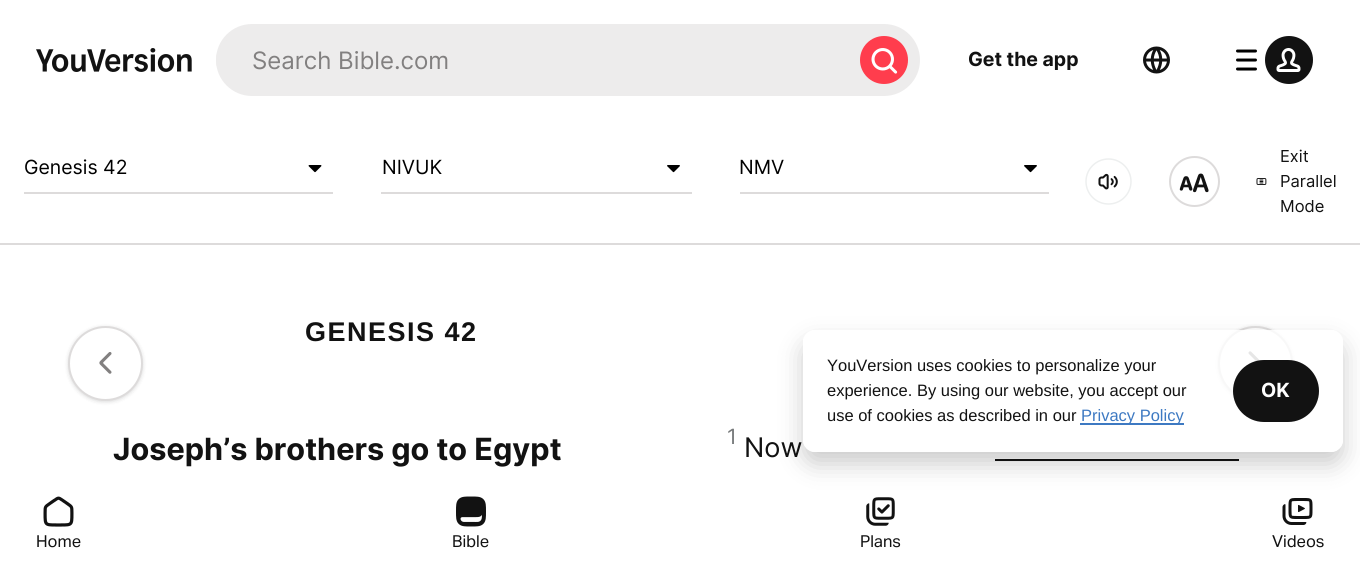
import math
import cairo

surface = cairo.ImageSurface(cairo.FORMAT_RGB24, 1360, 571)
ctx = cairo.Context(surface)
options = cairo.FontOptions()
options.set_hint_metrics(cairo.HINT_METRICS_OFF)
options.set_hint_style(cairo.HINT_STYLE_NONE)
ctx.set_font_options(options)
ctx.set_miter_limit(4)


def spaced_text(x, y, s, letter, word):
    ctx.move_to(x, y)
    for ch in s:
        ctx.show_text(ch)
        ctx.rel_move_to(letter + word * (ch == ' '), 0)


def round_rect(x, y, w, h, r):
    ctx.new_sub_path()
    for i, (u, v) in enumerate([(x + w - r, y + h - r), (x + r, y + h - r), (x + r, y + r), (x + w - r, y + r)]):
        ctx.arc(u, v, r, i * math.pi / 2, (i + 1) * math.pi / 2)
    ctx.close_path()


def shadow(x, y, w, h, r, blur, alpha):
    ctx.push_group_with_content(cairo.CONTENT_ALPHA)
    ctx.set_operator(cairo.OPERATOR_SOURCE)
    for i in range(15, -16, -2):
        e = blur * i / 6
        if min(w, h) + 2 * e > 0:
            ctx.set_source_rgba(0, 0, 0, alpha * math.erfc((i - 1) / 8.5) / 2)
            round_rect(x - e, y - e, w + 2 * e, h + 2 * e, max(0, min(r + e + blur * .6, min(w, h) / 2 + e)))
            ctx.fill()
    ctx.mask(ctx.pop_group())


def picture(path, x, y, w, h):
    ctx.save()
    ctx.set_source_surface(cairo.ImageSurface.create_from_png(path), x, y)
    ctx.rectangle(x, y, w, h)
    ctx.fill()
    ctx.restore()


ctx.set_source_rgb(1, 1, 1)
ctx.paint()
picture("img1.png", 36, 48, 156, 24)
ctx.set_source_rgb(0.929, 0.922, 0.922)
round_rect(216, 24, 704, 72, 36)
ctx.fill()
round_rect(216, 36, 632, 48, 24)
ctx.fill()
ctx.select_font_face("Inter")
ctx.set_font_size(24)
ctx.set_source_rgb(0.51, 0.502, 0.502)
ctx.move_to(252, 69)
ctx.show_text("Search Bible.com")
ctx.set_source_rgb(1, 0.239, 0.302)
ctx.new_path()
ctx.arc(884, 60, 24, 0, 2 * math.pi)
ctx.fill()
picture("img2.png", 871, 48, 27, 26)
ctx.select_font_face("Inter", cairo.FONT_SLANT_NORMAL, cairo.FONT_WEIGHT_BOLD)
ctx.set_font_size(19.5)
ctx.set_source_rgb(0.071, 0.071, 0.071)
ctx.move_to(968, 66)
ctx.show_text("Get the app")
picture("img3.png", 1143, 46, 27, 28)
picture("img4.png", 1236, 49, 21, 22)
ctx.arc(1289, 60, 24, 0, 2 * math.pi)
ctx.fill()
picture("img5.png", 1276, 48, 25, 24)
ctx.set_source_rgb(0.867, 0.859, 0.859)
ctx.rectangle(0, 243, 1360, 2)
ctx.fill()
ctx.rectangle(24, 192, 309, 2)
ctx.fill()
ctx.select_font_face("Inter")
ctx.set_source_rgb(0, 0, 0)
ctx.move_to(24, 174)
ctx.show_text("Genesis 42")
picture("img6.png", 308, 165, 14, 8)
ctx.set_source_rgb(0.867, 0.859, 0.859)
ctx.rectangle(381, 192, 311, 2)
ctx.fill()
ctx.set_source_rgb(0, 0, 0)
ctx.move_to(382, 174)
ctx.show_text("NIVUK")
picture("img7.png", 667, 165, 13, 8)
ctx.set_source_rgb(0.867, 0.859, 0.859)
ctx.rectangle(740, 192, 309, 2)
ctx.fill()
ctx.set_source_rgb(0, 0, 0)
ctx.move_to(739, 174)
ctx.show_text("NMV")
picture("img7.png", 1024, 165, 13, 8)
picture("img8.png", 1098, 173, 20, 17)
ctx.arc(1108.5, 181.5, 22.5, 0, 2 * math.pi)
ctx.set_source_rgb(0.929, 0.937, 0.937)
ctx.set_line_width(1.5)
ctx.stroke()
ctx.arc(1194.5, 181.5, 24.5, 0, 2 * math.pi)
ctx.set_source_rgb(0.867, 0.859, 0.859)
ctx.set_line_width(2)
ctx.stroke()
picture("img9.png", 1179, 173, 30, 20)
ctx.set_font_size(16.5)
ctx.set_source_rgb(0.071, 0.071, 0.071)
ctx.move_to(1280, 162)
ctx.show_text("Exit")
picture("img10.png", 1256, 178, 11, 7)
ctx.move_to(1280, 187)
ctx.show_text("Parallel")
ctx.move_to(1280, 212)
ctx.show_text("Mode")
ctx.set_source_rgb(0.071, 0.071, 0.071)
shadow(68, 327, 75, 75, 37.5, 2, 0.15)
ctx.set_source_rgb(1, 1, 1)
ctx.arc(105.5, 363.5, 36.5, 0, 2 * math.pi)
ctx.fill_preserve()
ctx.set_source_rgb(0.867, 0.859, 0.859)
ctx.stroke()
picture("img11.png", 99, 352, 13, 22)
ctx.set_source_rgb(0.071, 0.071, 0.071)
shadow(1218, 327, 75, 75, 37.5, 2, 0.15)
ctx.set_source_rgb(1, 1, 1)
ctx.arc(1255.5, 363.5, 36.5, 0, 2 * math.pi)
ctx.fill_preserve()
ctx.set_source_rgb(0.867, 0.859, 0.859)
ctx.stroke()
picture("img12.png", 1248, 351, 13, 11)
ctx.select_font_face("Liberation Sans", cairo.FONT_SLANT_NORMAL, cairo.FONT_WEIGHT_BOLD)
ctx.set_font_size(27)
ctx.set_source_rgb(0.071, 0.071, 0.071)
spaced_text(305, 341, "GENESIS 42", 1.5, 0)
ctx.select_font_face("Inter", cairo.FONT_SLANT_NORMAL, cairo.FONT_WEIGHT_BOLD)
ctx.set_font_size(30.6)
ctx.move_to(113, 460)
ctx.show_text("Joseph’s brothers go to Egypt")
ctx.select_font_face("Inter")
ctx.set_font_size(21)
ctx.set_source_rgb(0.467, 0.478, 0.482)
ctx.move_to(727, 444)
ctx.show_text("1")
ctx.set_font_size(27)
ctx.set_source_rgb(0.071, 0.071, 0.071)
ctx.move_to(744, 457)
ctx.show_text("Now")
ctx.rectangle(995, 459, 244, 2)
ctx.fill()
picture("img15.png", 866, 497, 29, 29)
picture("img16.png", 1282, 498, 31, 27)
ctx.save()
ctx.set_fill_rule(cairo.FILL_RULE_EVEN_ODD)
ctx.new_path()
ctx.move_to(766, 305)
ctx.line_to(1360, 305)
ctx.line_to(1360, 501)
ctx.line_to(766, 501)
ctx.close_path()
ctx.move_to(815, 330)
ctx.line_to(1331, 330)
ctx.curve_to(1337.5, 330, 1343, 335.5, 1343, 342)
ctx.line_to(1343, 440)
ctx.curve_to(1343, 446.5, 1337.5, 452, 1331, 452)
ctx.line_to(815, 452)
ctx.curve_to(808.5, 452, 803, 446.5, 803, 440)
ctx.line_to(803, 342)
ctx.curve_to(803, 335.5, 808.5, 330, 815, 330)
ctx.close_path()
ctx.clip()
ctx.set_source_rgb(0, 0, 0)
shadow(803, 342, 540, 122, 12, 12, 0.2)
ctx.restore()
ctx.set_source_rgba(1, 1, 1, 0.8)
round_rect(803, 330, 540, 122, 12)
ctx.fill()
ctx.select_font_face("Liberation Sans")
ctx.set_font_size(16.5)
ctx.set_source_rgb(0.071, 0.071, 0.071)
ctx.move_to(827, 371)
ctx.show_text("YouVersion uses cookies to personalize your")
ctx.move_to(827, 396)
ctx.show_text("experience. By using our website, you accept our")
ctx.move_to(827, 421)
ctx.show_text("use of cookies as described in our")
ctx.set_source_rgb(0.239, 0.475, 0.761)
ctx.rectangle(1080, 423, 104, 2)
ctx.fill()
ctx.move_to(1081, 421)
ctx.show_text("Privacy Policy")
ctx.set_source_rgb(0.071, 0.071, 0.071)
round_rect(1233, 360, 86, 62, 31)
ctx.fill()
ctx.select_font_face("Inter", cairo.FONT_SLANT_NORMAL, cairo.FONT_WEIGHT_BOLD)
ctx.set_font_size(19.5)
ctx.set_source_rgb(1, 1, 1)
ctx.move_to(1261, 397)
ctx.show_text("OK")
picture("img13.png", 43, 496, 31, 31)
ctx.select_font_face("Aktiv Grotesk")
ctx.set_font_size(16.5)
ctx.set_source_rgb(0.071, 0.071, 0.071)
ctx.move_to(36, 547)
ctx.show_text("Home")
picture("img14.png", 456, 496, 30, 31)
ctx.move_to(452, 547)
ctx.show_text("Bible")
ctx.move_to(860, 547)
ctx.show_text("Plans")
ctx.move_to(1272, 547)
ctx.show_text("Videos")
surface.write_to_png("page.png")
